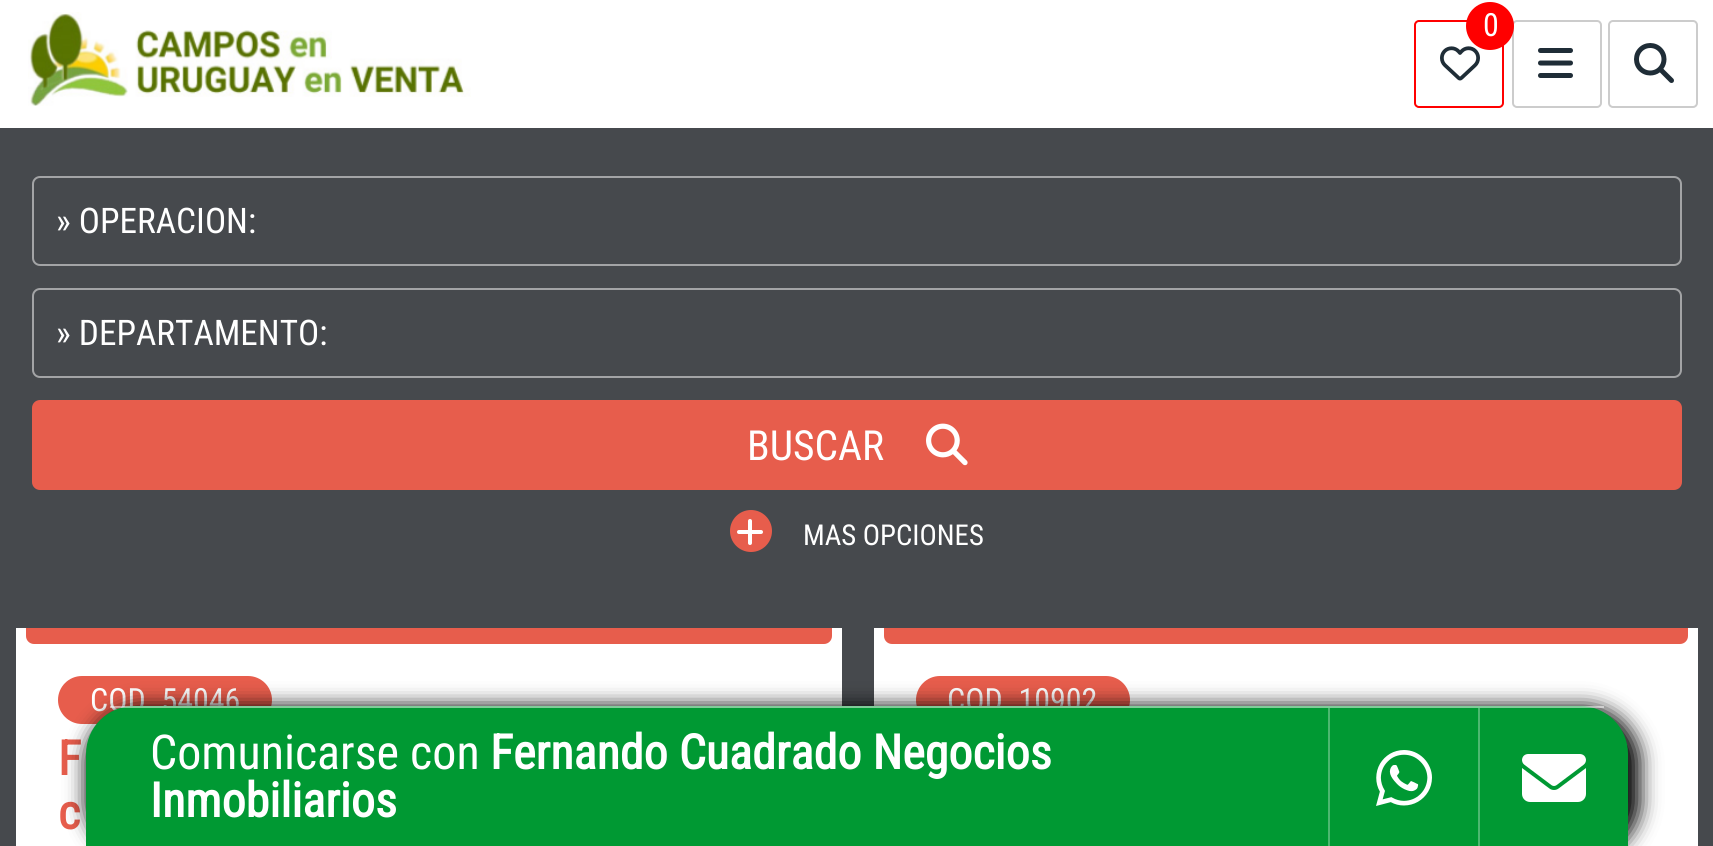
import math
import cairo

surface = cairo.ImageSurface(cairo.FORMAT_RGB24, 1713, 846)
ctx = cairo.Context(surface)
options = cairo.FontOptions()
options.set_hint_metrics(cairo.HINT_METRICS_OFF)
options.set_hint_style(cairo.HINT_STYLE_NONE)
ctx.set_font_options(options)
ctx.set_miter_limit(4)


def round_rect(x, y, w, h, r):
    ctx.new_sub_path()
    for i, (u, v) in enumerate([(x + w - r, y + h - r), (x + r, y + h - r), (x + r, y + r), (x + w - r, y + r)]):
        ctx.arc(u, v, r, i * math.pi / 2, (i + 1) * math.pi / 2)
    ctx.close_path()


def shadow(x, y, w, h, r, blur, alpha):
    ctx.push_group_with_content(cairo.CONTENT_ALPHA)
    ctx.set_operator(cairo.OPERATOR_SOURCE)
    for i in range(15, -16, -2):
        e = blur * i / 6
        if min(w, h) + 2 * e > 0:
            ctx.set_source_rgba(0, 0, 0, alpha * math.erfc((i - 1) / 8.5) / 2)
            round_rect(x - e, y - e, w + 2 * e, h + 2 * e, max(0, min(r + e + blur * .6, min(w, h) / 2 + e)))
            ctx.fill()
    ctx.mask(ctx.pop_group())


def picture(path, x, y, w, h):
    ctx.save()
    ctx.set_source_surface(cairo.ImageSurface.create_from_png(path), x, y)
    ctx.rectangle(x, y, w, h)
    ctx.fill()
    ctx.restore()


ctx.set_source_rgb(0.275, 0.286, 0.302)
ctx.paint()
ctx.set_source_rgb(1, 1, 1)
ctx.rectangle(0, 0, 1713, 128)
ctx.fill()
picture("img1.png", 28, 12, 443, 94)
round_rect(1415, 21, 88, 86, 4)
ctx.set_source_rgb(1, 0, 0)
ctx.stroke()
picture("img2.png", 1440, 46, 40, 35)
round_rect(1513, 21, 88, 86, 4)
ctx.set_source_rgb(0.8, 0.8, 0.8)
ctx.stroke()
ctx.set_source_rgb(1, 0, 0)
ctx.arc(1490, 26, 24, 0, 2 * math.pi)
ctx.fill()
ctx.select_font_face("Roboto Condensed")
ctx.set_font_size(32)
ctx.set_source_rgb(1, 1, 1)
ctx.move_to(1483, 36)
ctx.show_text("0")
picture("img3.png", 1538, 48, 35, 30)
round_rect(1609, 21, 88, 86, 4)
ctx.set_source_rgb(0.8, 0.8, 0.8)
ctx.stroke()
picture("img4.png", 1634, 43, 40, 40)
ctx.set_source_rgb(1, 1, 1)
ctx.rectangle(16, 628, 826, 218)
ctx.fill()
ctx.set_source_rgb(0.906, 0.365, 0.298)
round_rect(26, 554, 806, 90, 8)
ctx.fill()
ctx.set_source_rgb(1, 1, 1)
ctx.rectangle(874, 628, 824, 218)
ctx.fill()
ctx.set_source_rgb(0.906, 0.365, 0.298)
round_rect(884, 554, 804, 90, 8)
ctx.fill()
ctx.set_source_rgb(0.275, 0.286, 0.302)
ctx.rectangle(26, 554, 1662, 74)
ctx.fill()
round_rect(33, 177, 1648, 88, 7)
ctx.set_source_rgb(0.639, 0.643, 0.651)
ctx.stroke()
ctx.set_font_size(35.25)
ctx.set_source_rgb(1, 1, 1)
ctx.move_to(56, 233)
ctx.show_text("» OPERACION:")
round_rect(33, 289, 1648, 88, 7)
ctx.set_source_rgb(0.639, 0.643, 0.651)
ctx.stroke()
ctx.set_source_rgb(1, 1, 1)
ctx.move_to(56, 345)
ctx.show_text("» DEPARTAMENTO:")
ctx.set_source_rgb(0.906, 0.365, 0.298)
round_rect(32, 400, 1650, 90, 8)
ctx.fill()
ctx.set_font_size(41.5)
ctx.set_source_rgb(1, 1, 1)
ctx.move_to(747, 460)
ctx.show_text("BUSCAR")
picture("img5.png", 926, 423, 42, 43)
ctx.set_source_rgb(0.906, 0.365, 0.298)
ctx.arc(751, 531, 21, 0, 2 * math.pi)
ctx.fill()
picture("img6.png", 737, 519, 26, 26)
ctx.set_font_size(28.75)
ctx.set_source_rgb(1, 1, 1)
ctx.move_to(803, 545)
ctx.show_text("MAS OPCIONES")
ctx.set_source_rgb(0.906, 0.365, 0.298)
round_rect(58, 676, 214, 48, 24)
ctx.fill()
ctx.set_font_size(32)
ctx.set_source_rgb(1, 1, 1)
ctx.move_to(90, 711)
ctx.show_text("COD. 54046")
ctx.select_font_face("Roboto Condensed", cairo.FONT_SLANT_NORMAL, cairo.FONT_WEIGHT_BOLD)
ctx.set_font_size(48)
ctx.set_source_rgb(0.906, 0.365, 0.298)
ctx.move_to(58, 775)
ctx.show_text("F")
ctx.move_to(58, 829)
ctx.show_text("c")
round_rect(916, 676, 214, 48, 24)
ctx.fill()
ctx.select_font_face("Roboto Condensed")
ctx.set_font_size(32)
ctx.set_source_rgb(1, 1, 1)
ctx.move_to(947, 711)
ctx.show_text("COD. 10902")
ctx.set_source_rgb(0, 0, 0)
shadow(86, 706, 1554, 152, 54, 10, 1)
ctx.set_source_rgb(0, 0.6, 0.2)
ctx.new_path()
ctx.move_to(134, 706)
ctx.line_to(1580, 706)
ctx.curve_to(1606.5, 706, 1628, 727.5, 1628, 754)
ctx.line_to(1628, 846)
ctx.line_to(86, 846)
ctx.line_to(86, 754)
ctx.curve_to(86, 727.5, 107.5, 706, 134, 706)
ctx.close_path()
ctx.fill()
ctx.set_source_rgba(1, 1, 1, 0.5)
ctx.rectangle(110, 706, 1494, 2)
ctx.fill()
ctx.set_font_size(48)
ctx.set_source_rgb(1, 1, 1)
ctx.move_to(150, 769)
ctx.show_text("Comunicarse con")
ctx.select_font_face("Roboto Condensed", cairo.FONT_SLANT_NORMAL, cairo.FONT_WEIGHT_BOLD)
ctx.move_to(490, 769)
ctx.show_text("Fernando Cuadrado Negocios")
ctx.move_to(150, 817)
ctx.show_text("Inmobiliarios")
ctx.set_source_rgb(0.302, 0.722, 0.439)
ctx.rectangle(1328, 708, 2, 138)
ctx.fill()
picture("img7.png", 1376, 750, 56, 56)
ctx.rectangle(1478, 708, 2, 138)
ctx.fill()
picture("img8.png", 1522, 754, 64, 48)
surface.write_to_png("page.png")
